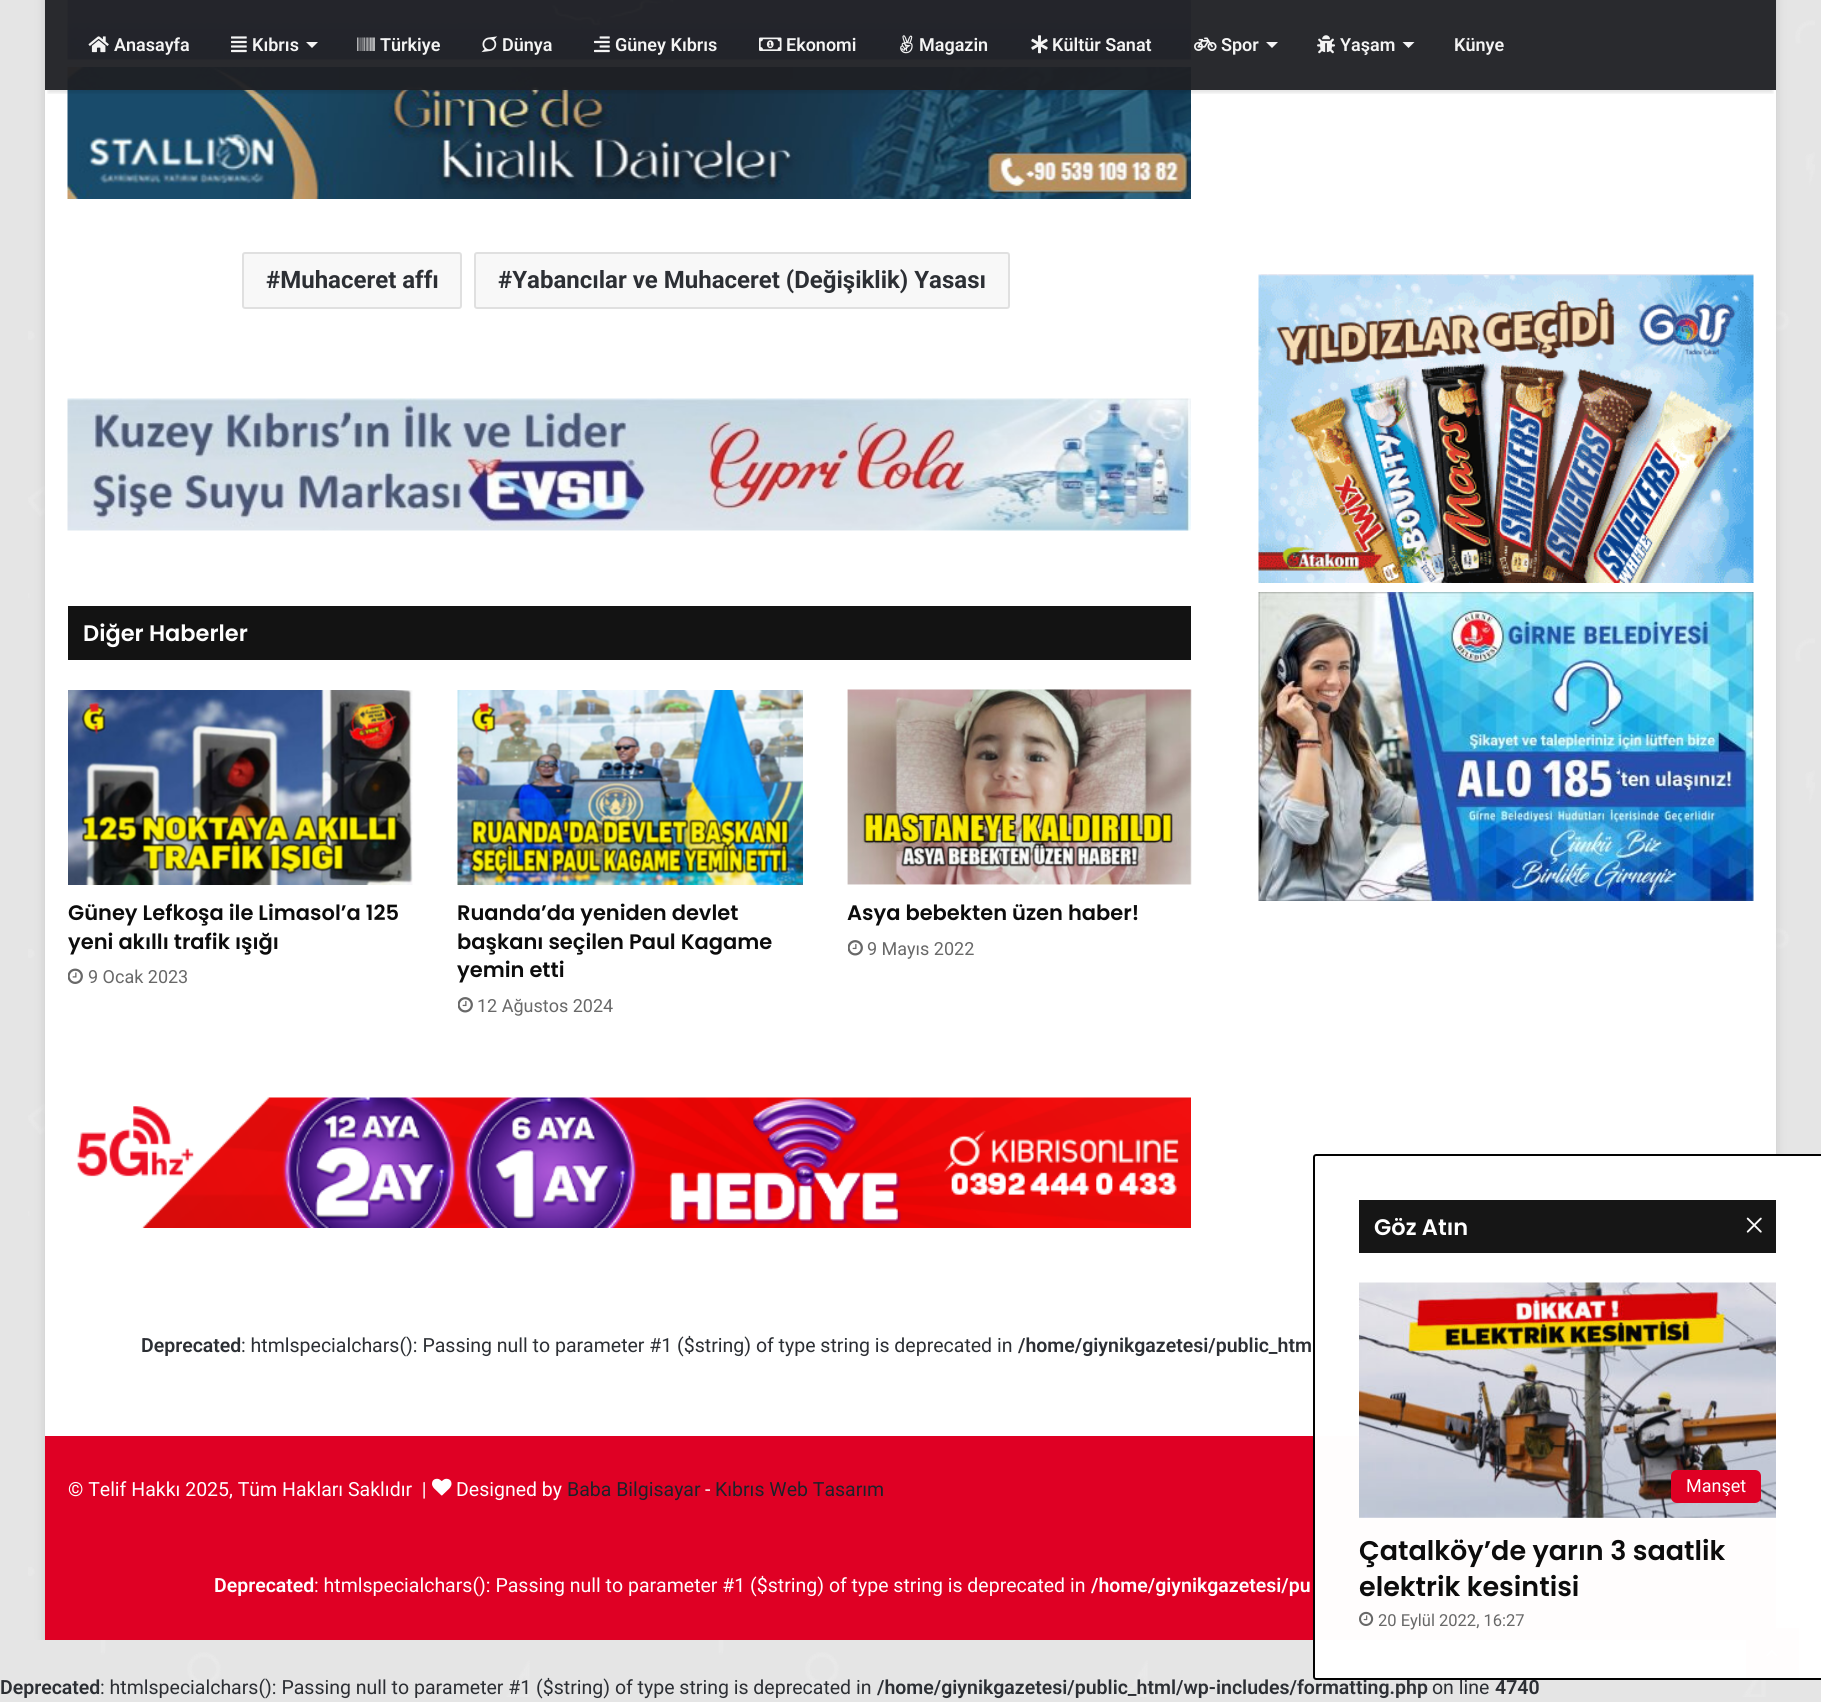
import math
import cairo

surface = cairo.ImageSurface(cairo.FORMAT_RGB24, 1821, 1702)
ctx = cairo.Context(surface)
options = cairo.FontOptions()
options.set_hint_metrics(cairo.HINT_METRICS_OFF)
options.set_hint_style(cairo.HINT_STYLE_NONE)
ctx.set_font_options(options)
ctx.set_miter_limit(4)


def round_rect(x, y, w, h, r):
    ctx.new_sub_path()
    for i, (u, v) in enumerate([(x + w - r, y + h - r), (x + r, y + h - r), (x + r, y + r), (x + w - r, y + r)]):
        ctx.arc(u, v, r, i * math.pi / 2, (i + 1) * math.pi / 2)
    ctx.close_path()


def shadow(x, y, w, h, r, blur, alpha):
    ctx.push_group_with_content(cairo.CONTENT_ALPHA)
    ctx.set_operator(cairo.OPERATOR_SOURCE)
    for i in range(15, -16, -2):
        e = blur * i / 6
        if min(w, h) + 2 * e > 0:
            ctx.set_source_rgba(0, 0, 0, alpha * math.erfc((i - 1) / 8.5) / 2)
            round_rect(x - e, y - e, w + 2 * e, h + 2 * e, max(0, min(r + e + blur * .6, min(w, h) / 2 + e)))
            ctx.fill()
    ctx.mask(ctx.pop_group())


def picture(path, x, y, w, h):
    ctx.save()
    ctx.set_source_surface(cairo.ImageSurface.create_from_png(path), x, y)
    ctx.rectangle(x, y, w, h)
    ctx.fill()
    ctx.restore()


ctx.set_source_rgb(0.898, 0.898, 0.898)
ctx.paint()
picture("img1.png", 28, 20, 1787, 1677)
ctx.save()
ctx.rectangle(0, 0, 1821, 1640)
ctx.clip()
ctx.set_source_rgb(0.671, 0.671, 0.671)
shadow(45, -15, 1731, 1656, 0, 5, 0.5)
ctx.restore()
ctx.set_source_rgb(1, 1, 1)
ctx.rectangle(45, 0, 1731, 1436)
ctx.fill()
picture("img12.png", 67, 0, 1124, 60)
picture("img13.png", 67, 67, 1124, 132)
ctx.save()
ctx.rectangle(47, 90, 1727, 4)
ctx.clip()
ctx.set_source_rgb(0, 0, 0)
shadow(48, 9, 1725, 84, 0, 1.5, 0.1)
ctx.restore()
ctx.set_source_rgba(0.122, 0.125, 0.141, 0.95)
ctx.rectangle(45, 0, 1731, 90)
ctx.fill()
picture("img2.png", 88, 36, 21, 17)
ctx.select_font_face("Roboto SemiBold")
ctx.set_font_size(18)
ctx.set_source_rgb(0.957, 0.957, 0.957)
ctx.move_to(114, 51)
ctx.show_text("Anasayfa")
picture("img3.png", 231, 36, 16, 17)
ctx.move_to(252, 51)
ctx.show_text("Kıbrıs")
ctx.new_path()
ctx.move_to(306, 42)
ctx.line_to(318, 42)
ctx.line_to(312, 48)
ctx.close_path()
ctx.fill()
picture("img4.png", 357, 37, 18, 14)
ctx.move_to(380, 51)
ctx.show_text("Türkiye")
picture("img5.png", 481, 36, 17, 17)
ctx.move_to(502, 51)
ctx.show_text("Dünya")
picture("img6.png", 594, 36, 16, 17)
ctx.move_to(615, 51)
ctx.show_text("Güney Kıbrıs")
picture("img7.png", 759, 37, 23, 14)
ctx.move_to(786, 51)
ctx.show_text("Ekonomi")
picture("img8.png", 900, 35, 13, 19)
ctx.move_to(919, 51)
ctx.show_text("Magazin")
picture("img9.png", 1031, 35, 17, 19)
ctx.move_to(1052, 51)
ctx.show_text("Kültür Sanat")
picture("img10.png", 1194, 37, 23, 14)
ctx.move_to(1221, 51)
ctx.show_text("Spor")
ctx.set_source_rgb(0.957, 0.957, 0.961)
ctx.new_path()
ctx.move_to(1266, 42)
ctx.line_to(1278, 42)
ctx.line_to(1272, 48)
ctx.close_path()
ctx.fill()
picture("img11.png", 1317, 35, 18, 19)
ctx.set_source_rgb(0.957, 0.957, 0.957)
ctx.move_to(1340, 51)
ctx.show_text("Yaşam")
ctx.set_source_rgb(0.957, 0.957, 0.961)
ctx.new_path()
ctx.move_to(1402.5, 42)
ctx.line_to(1414.5, 42)
ctx.line_to(1408.5, 48)
ctx.close_path()
ctx.fill()
ctx.set_source_rgb(0.957, 0.957, 0.957)
ctx.move_to(1454, 51)
ctx.show_text("Künye")
ctx.set_source_rgb(0.969, 0.969, 0.969)
round_rect(242, 252, 220, 57, 3)
ctx.fill()
round_rect(243, 253, 218, 55, 2)
ctx.set_source_rgba(0.012, 0.012, 0.012, 0.1)
ctx.stroke()
ctx.select_font_face("Roboto", cairo.FONT_SLANT_NORMAL, cairo.FONT_WEIGHT_BOLD)
ctx.set_font_size(24)
ctx.set_source_rgb(0.173, 0.184, 0.204)
ctx.move_to(266, 288)
ctx.show_text("#Muhaceret affı")
ctx.set_source_rgb(0.969, 0.969, 0.969)
round_rect(474, 252, 536, 57, 3)
ctx.fill()
round_rect(475, 253, 534, 55, 2)
ctx.set_source_rgba(0.012, 0.012, 0.012, 0.1)
ctx.stroke()
ctx.set_source_rgb(0.173, 0.184, 0.204)
ctx.move_to(498, 288)
ctx.show_text("#Yabancılar ve Muhaceret (Değişiklik) Yasası")
picture("img14.png", 67, 398, 1124, 133)
ctx.set_source_rgb(0.075, 0.075, 0.075)
ctx.rectangle(68, 606, 1123, 54)
ctx.fill()
ctx.select_font_face("Poppins SemiBold")
ctx.set_font_size(22.5)
ctx.set_source_rgb(1, 1, 1)
ctx.move_to(83, 641)
ctx.show_text("Diğer Haberler")
picture("img15.png", 68, 690, 345, 195)
ctx.set_font_size(21)
ctx.set_source_rgb(0.047, 0.047, 0.047)
ctx.move_to(68, 920)
ctx.show_text("Güney Lefkoşa ile Limasol’a 125")
ctx.move_to(68, 949)
ctx.show_text("yeni akıllı trafik ışığı")
picture("img16.png", 68, 968, 15, 16)
ctx.select_font_face("Roboto")
ctx.set_font_size(18)
ctx.set_source_rgb(0.408, 0.408, 0.408)
ctx.move_to(88, 983)
ctx.show_text("9 Ocak 2023")
picture("img17.png", 457, 690, 346, 195)
ctx.select_font_face("Poppins SemiBold")
ctx.set_font_size(21)
ctx.set_source_rgb(0.047, 0.047, 0.047)
ctx.move_to(457, 920)
ctx.show_text("Ruanda’da yeniden devlet")
ctx.move_to(457, 949)
ctx.show_text("başkanı seçilen Paul Kagame")
ctx.move_to(457, 977)
ctx.show_text("yemin etti")
picture("img18.png", 458, 997, 15, 16)
ctx.select_font_face("Roboto")
ctx.set_font_size(18)
ctx.set_source_rgb(0.408, 0.408, 0.408)
ctx.move_to(477, 1012)
ctx.show_text("12 Ağustos 2024")
picture("img19.png", 847, 689, 345, 196)
ctx.select_font_face("Poppins SemiBold")
ctx.set_font_size(21)
ctx.set_source_rgb(0.047, 0.047, 0.047)
ctx.move_to(847, 920)
ctx.show_text("Asya bebekten üzen haber!")
picture("img18.png", 848, 940, 15, 16)
ctx.select_font_face("Roboto")
ctx.set_font_size(18)
ctx.set_source_rgb(0.408, 0.408, 0.408)
ctx.move_to(867, 955)
ctx.show_text("9 Mayıs 2022")
picture("img20.png", 77, 1097, 1114, 131)
picture("img21.png", 1258, 274, 496, 309)
picture("img22.png", 1258, 592, 496, 309)
ctx.set_source_rgb(0.875, 0, 0.141)
ctx.rectangle(45, 1436, 1731, 204)
ctx.fill()
ctx.rectangle(1746, 1628, 53, 52)
ctx.fill()
picture("img27.png", 1766, 1649, 12, 8)
ctx.select_font_face("Roboto SemiBold")
ctx.set_font_size(19.5)
ctx.set_source_rgb(0.173, 0.184, 0.204)
ctx.move_to(877, 1694)
ctx.show_text("/home/giynikgazetesi/public_html/wp-includes/formatting.php")
ctx.select_font_face("Roboto")
ctx.move_to(1432, 1694)
ctx.show_text("on line")
ctx.select_font_face("Roboto SemiBold")
ctx.move_to(1495, 1694)
ctx.show_text("4740")
ctx.set_source_rgba(1, 1, 1, 0.99)
ctx.new_path()
ctx.move_to(1316, 1154)
ctx.line_to(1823, 1154)
ctx.line_to(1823, 1680)
ctx.line_to(1316, 1680)
ctx.curve_to(1314.5, 1680, 1313, 1678.5, 1313, 1677)
ctx.line_to(1313, 1157)
ctx.curve_to(1313, 1155.5, 1314.5, 1154, 1316, 1154)
ctx.close_path()
ctx.fill()
ctx.new_path()
ctx.move_to(1316, 1155)
ctx.line_to(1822, 1155)
ctx.line_to(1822, 1679)
ctx.line_to(1316, 1679)
ctx.curve_to(1315, 1679, 1314, 1678, 1314, 1677)
ctx.line_to(1314, 1157)
ctx.curve_to(1314, 1156, 1315, 1155, 1316, 1155)
ctx.close_path()
ctx.set_source_rgba(0, 0, 0, 0.99)
ctx.stroke()
ctx.set_source_rgb(0.086, 0.086, 0.086)
ctx.rectangle(1359, 1200, 417, 53)
ctx.fill()
ctx.select_font_face("Poppins SemiBold")
ctx.set_font_size(22.5)
ctx.set_source_rgb(1, 1, 1)
ctx.move_to(1374, 1235)
ctx.show_text("Göz Atın")
picture("img23.png", 1746, 1217, 16, 16)
picture("img24.png", 1359, 1282, 417, 236)
ctx.set_source_rgb(0.875, 0, 0.141)
round_rect(1671, 1470, 90, 33, 6)
ctx.fill()
ctx.select_font_face("Roboto")
ctx.set_font_size(18)
ctx.set_source_rgb(1, 1, 1)
ctx.move_to(1686, 1492)
ctx.show_text("Manşet")
ctx.select_font_face("Poppins SemiBold")
ctx.set_font_size(27)
ctx.set_source_rgb(0.047, 0.047, 0.047)
ctx.move_to(1359, 1560)
ctx.show_text("Çatalköy’de yarın 3 saatlik")
ctx.move_to(1359, 1596)
ctx.show_text("elektrik kesintisi")
picture("img25.png", 1359, 1611, 15, 15)
ctx.select_font_face("Roboto")
ctx.set_font_size(16.5)
ctx.set_source_rgb(0.408, 0.408, 0.408)
ctx.move_to(1378, 1626)
ctx.show_text("20 Eylül 2022, 16:27")
ctx.select_font_face("Roboto SemiBold")
ctx.set_font_size(19.5)
ctx.set_source_rgb(0.173, 0.184, 0.204)
ctx.move_to(141, 1352)
ctx.show_text("Deprecated")
ctx.select_font_face("Roboto")
ctx.move_to(241, 1352)
ctx.show_text(": htmlspecialchars(): Passing null to parameter #1 ($string) of type string is deprecated in")
ctx.select_font_face("Roboto SemiBold")
ctx.move_to(1018, 1352)
ctx.show_text("/home/giynikgazetesi/public_htm")
ctx.select_font_face("Roboto")
ctx.set_source_rgb(1, 1, 1)
ctx.move_to(68, 1496)
ctx.show_text("© Telif Hakkı 2025, Tüm Hakları Saklıdır  |")
picture("img26.png", 432, 1478, 20, 18)
ctx.move_to(456, 1496)
ctx.show_text("Designed by")
ctx.set_source_rgb(0.114, 0.129, 0.161)
ctx.move_to(567, 1496)
ctx.show_text("Baba Bilgisayar")
ctx.set_source_rgb(1, 1, 1)
ctx.move_to(705, 1496)
ctx.show_text("-")
ctx.set_source_rgb(0.114, 0.129, 0.161)
ctx.move_to(715, 1496)
ctx.show_text("Kıbrıs Web Tasarım")
ctx.select_font_face("Roboto SemiBold")
ctx.set_source_rgb(1, 1, 1)
ctx.move_to(214, 1592)
ctx.show_text("Deprecated")
ctx.select_font_face("Roboto")
ctx.move_to(314, 1592)
ctx.show_text(": htmlspecialchars(): Passing null to parameter #1 ($string) of type string is deprecated in")
ctx.select_font_face("Roboto SemiBold")
ctx.move_to(1091, 1592)
ctx.show_text("/home/giynikgazetesi/pu")
ctx.set_source_rgb(0.173, 0.184, 0.204)
ctx.move_to(0, 1694)
ctx.show_text("Deprecated")
ctx.select_font_face("Roboto")
ctx.move_to(100, 1694)
ctx.show_text(": htmlspecialchars(): Passing null to parameter #1 ($string) of type string is deprecated in")
surface.write_to_png("page.png")
